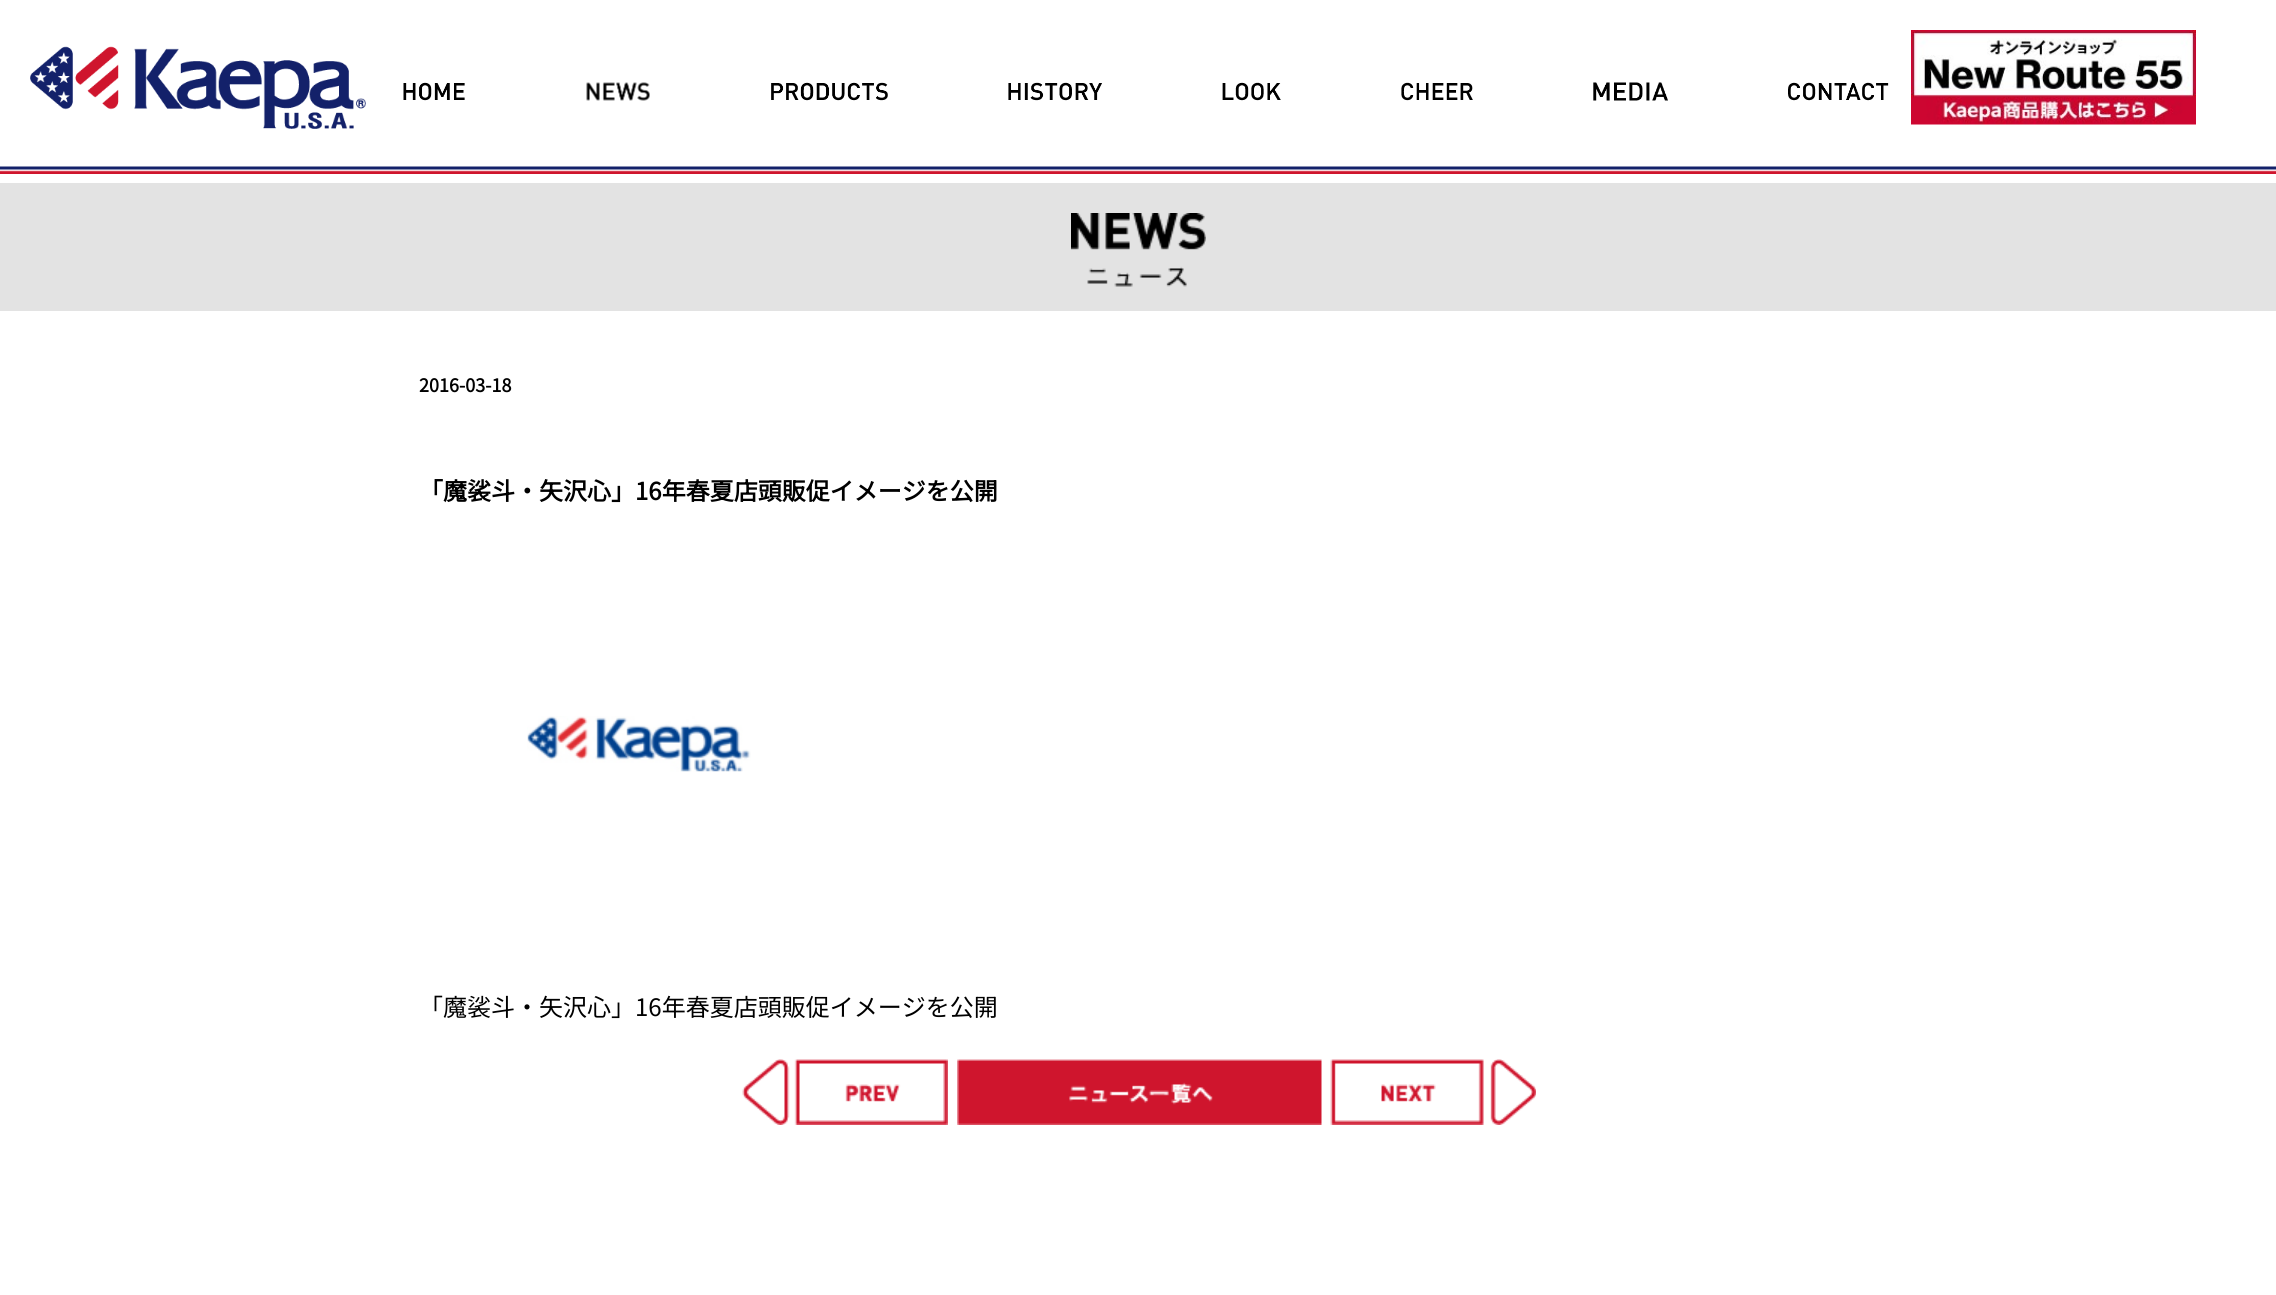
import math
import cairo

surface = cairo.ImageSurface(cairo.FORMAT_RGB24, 2276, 1295)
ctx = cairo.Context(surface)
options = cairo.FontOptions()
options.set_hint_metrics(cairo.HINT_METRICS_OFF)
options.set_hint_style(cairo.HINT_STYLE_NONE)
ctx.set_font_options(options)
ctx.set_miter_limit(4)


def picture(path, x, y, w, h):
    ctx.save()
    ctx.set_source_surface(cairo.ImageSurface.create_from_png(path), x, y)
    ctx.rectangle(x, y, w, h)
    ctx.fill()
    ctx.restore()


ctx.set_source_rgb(1, 1, 1)
ctx.paint()
picture("img1.png", 0, 166, 2276, 8)
picture("img2.png", 30, 46, 336, 83)
picture("img3.png", 403, 82, 62, 19)
picture("img4.png", 586, 82, 64, 19)
picture("img5.png", 771, 82, 117, 19)
picture("img6.png", 1008, 82, 94, 19)
picture("img7.png", 1222, 82, 59, 19)
picture("img8.png", 1401, 82, 72, 19)
picture("img9.png", 1593, 82, 75, 19)
picture("img10.png", 1788, 82, 101, 19)
picture("img11.png", 1911, 30, 285, 95)
ctx.set_source_rgb(0.89, 0.89, 0.89)
ctx.rectangle(0, 183, 2276, 128)
ctx.fill()
picture("img12.png", 1071, 213, 135, 74)
ctx.select_font_face("Noto Sans JP", cairo.FONT_SLANT_NORMAL, cairo.FONT_WEIGHT_BOLD)
ctx.set_font_size(18)
ctx.set_source_rgb(0, 0, 0)
ctx.move_to(419, 392)
ctx.show_text("2016-03-18")
ctx.set_font_size(24)
ctx.move_to(419, 500)
ctx.show_text("「魔裟斗・矢沢心」16年春夏店頭販促イメージを公開")
picture("img13.png", 527, 716, 224, 56)
ctx.select_font_face("Noto Sans JP Thin")
ctx.move_to(419, 1016)
ctx.show_text("「魔裟斗・矢沢心」16年春夏店頭販促イメージを公開")
picture("img14.png", 742, 1059, 206, 66)
picture("img15.png", 957, 1059, 365, 66)
picture("img16.png", 1330, 1059, 206, 66)
surface.write_to_png("page.png")
